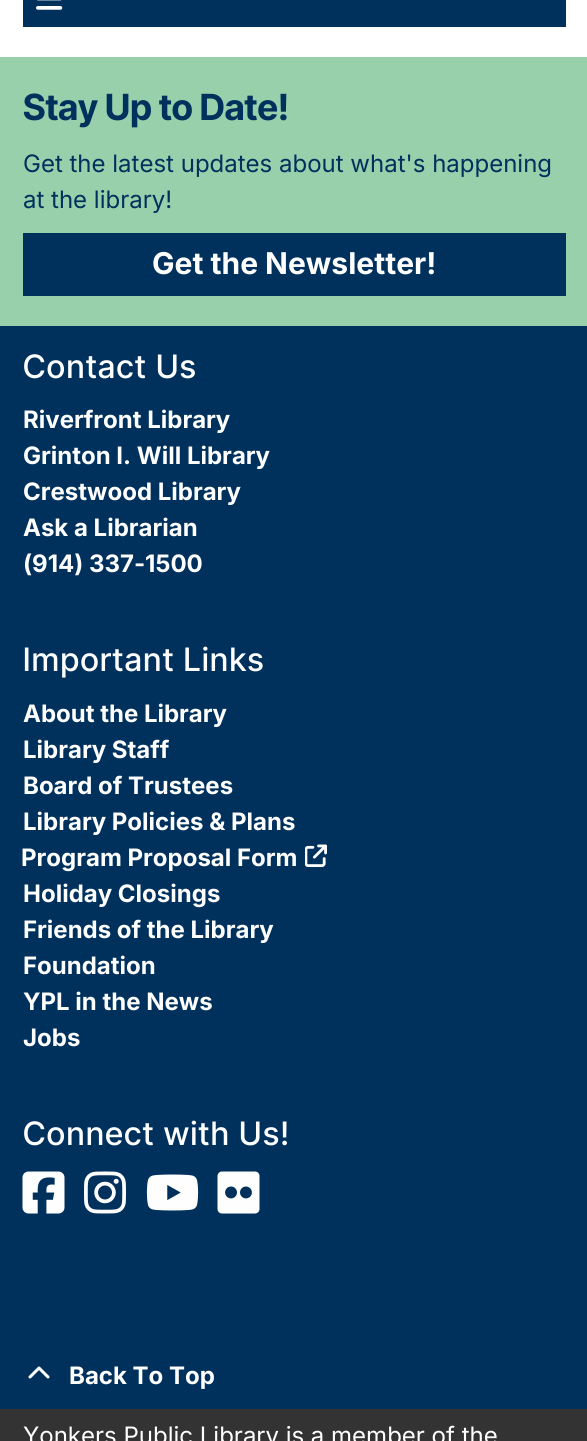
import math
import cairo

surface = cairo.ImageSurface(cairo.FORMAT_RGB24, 587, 1441)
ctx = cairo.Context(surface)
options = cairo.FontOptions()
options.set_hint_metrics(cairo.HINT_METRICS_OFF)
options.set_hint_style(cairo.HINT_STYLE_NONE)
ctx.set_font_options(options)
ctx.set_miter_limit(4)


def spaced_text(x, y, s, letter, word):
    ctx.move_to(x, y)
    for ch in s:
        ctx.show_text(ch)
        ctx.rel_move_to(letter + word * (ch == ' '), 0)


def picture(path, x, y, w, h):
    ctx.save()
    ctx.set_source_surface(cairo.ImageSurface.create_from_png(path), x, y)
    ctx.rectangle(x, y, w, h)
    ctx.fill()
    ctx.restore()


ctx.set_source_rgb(1, 1, 1)
ctx.paint()
ctx.set_source_rgb(0, 0.192, 0.365)
ctx.rectangle(23, 0, 543, 27)
ctx.fill()
picture("img1.png", 36, 0, 27, 10)
ctx.set_source_rgb(0.592, 0.816, 0.671)
ctx.rectangle(0, 57, 587, 269)
ctx.fill()
ctx.select_font_face("Inter Tight", cairo.FONT_SLANT_NORMAL, cairo.FONT_WEIGHT_BOLD)
ctx.set_font_size(36)
ctx.set_source_rgb(0, 0.192, 0.365)
ctx.move_to(23, 120)
ctx.show_text("Stay Up to Date!")
ctx.select_font_face("Inter")
ctx.set_font_size(24)
ctx.move_to(23, 172)
ctx.show_text("Get the latest updates about what's happening")
ctx.move_to(23, 208)
ctx.show_text("at the library!")
ctx.rectangle(23, 233, 543, 63)
ctx.fill()
ctx.select_font_face("Inter", cairo.FONT_SLANT_NORMAL, cairo.FONT_WEIGHT_BOLD)
ctx.set_font_size(30)
ctx.set_source_rgb(1, 1, 1)
ctx.move_to(152, 274)
ctx.show_text("Get the Newsletter!")
ctx.set_source_rgb(0, 0.192, 0.365)
ctx.rectangle(0, 326, 587, 1083)
ctx.fill()
ctx.select_font_face("Inter Tight Medium")
ctx.set_font_size(32.25)
ctx.set_source_rgb(1, 1, 1)
spaced_text(23, 378, "Contact Us", 1.5, 0)
ctx.select_font_face("Inter", cairo.FONT_SLANT_NORMAL, cairo.FONT_WEIGHT_BOLD)
ctx.set_font_size(24)
ctx.move_to(23, 428)
ctx.show_text("Riverfront Library")
ctx.move_to(23, 464)
ctx.show_text("Grinton I. Will Library")
ctx.move_to(23, 500)
ctx.show_text("Crestwood Library")
ctx.move_to(23, 536)
ctx.show_text("Ask a Librarian")
ctx.move_to(23, 572)
ctx.show_text("(914) 337-1500")
ctx.select_font_face("Inter Tight Medium")
ctx.set_font_size(32.25)
spaced_text(23, 671, "Important Links", 1.5, 0)
ctx.select_font_face("Inter", cairo.FONT_SLANT_NORMAL, cairo.FONT_WEIGHT_BOLD)
ctx.set_font_size(24)
ctx.move_to(23, 722)
ctx.show_text("About the Library")
ctx.move_to(23, 758)
ctx.show_text("Library Staff")
ctx.move_to(23, 794)
ctx.show_text("Board of Trustees")
ctx.move_to(23, 830)
ctx.show_text("Library Policies & Plans")
ctx.move_to(21, 866)
ctx.show_text("Program Proposal Form")
picture("img2.png", 305, 844, 22, 23)
ctx.move_to(23, 902)
ctx.show_text("Holiday Closings")
ctx.move_to(23, 938)
ctx.show_text("Friends of the Library")
ctx.move_to(23, 974)
ctx.show_text("Foundation")
ctx.move_to(23, 1010)
ctx.show_text("YPL in the News")
ctx.move_to(23, 1046)
ctx.show_text("Jobs")
ctx.select_font_face("Inter Tight Medium")
ctx.set_font_size(32.25)
spaced_text(23, 1145, "Connect with Us!", 1.5, 0)
picture("img3.png", 22, 1171, 43, 43)
picture("img4.png", 84, 1171, 42, 43)
picture("img5.png", 146, 1174, 53, 37)
picture("img6.png", 217, 1171, 43, 43)
picture("img7.png", 28, 1366, 22, 13)
ctx.select_font_face("Inter", cairo.FONT_SLANT_NORMAL, cairo.FONT_WEIGHT_BOLD)
ctx.set_font_size(24)
ctx.move_to(69, 1384)
ctx.show_text("Back To Top")
ctx.set_source_rgb(0.2, 0.2, 0.2)
ctx.rectangle(0, 1409, 587, 32)
ctx.fill()
ctx.select_font_face("Inter")
ctx.set_source_rgb(1, 1, 1)
ctx.move_to(23, 1444)
ctx.show_text("Yonkers Public Library is a member of the")
surface.write_to_png("page.png")
